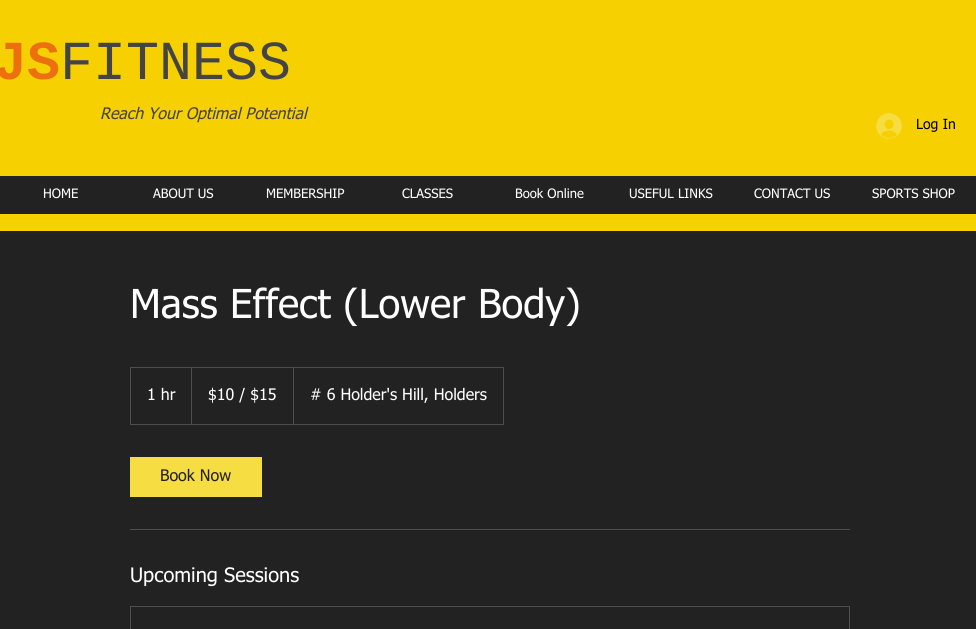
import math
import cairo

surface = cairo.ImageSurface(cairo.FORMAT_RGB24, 976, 629)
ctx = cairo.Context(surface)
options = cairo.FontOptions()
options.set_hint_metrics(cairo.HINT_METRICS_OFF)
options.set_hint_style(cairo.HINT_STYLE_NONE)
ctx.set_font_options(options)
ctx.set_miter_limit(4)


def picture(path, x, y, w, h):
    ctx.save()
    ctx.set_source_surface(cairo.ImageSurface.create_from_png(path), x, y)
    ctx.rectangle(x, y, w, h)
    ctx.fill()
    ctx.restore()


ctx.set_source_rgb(0.133, 0.133, 0.133)
ctx.paint()
ctx.set_source_rgb(0.961, 0.816, 0)
ctx.rectangle(0, 0, 976, 231)
ctx.fill()
ctx.select_font_face("Liberation Mono", cairo.FONT_SLANT_NORMAL, cairo.FONT_WEIGHT_BOLD)
ctx.set_font_size(55)
ctx.set_source_rgb(0.925, 0.439, 0.051)
ctx.move_to(-6, 79)
ctx.show_text("JS")
ctx.select_font_face("Liberation Mono")
ctx.set_source_rgb(0.267, 0.267, 0.267)
ctx.move_to(60, 79)
ctx.show_text("FITNESS")
ctx.select_font_face("tahoma", cairo.FONT_SLANT_ITALIC)
ctx.set_font_size(16)
ctx.move_to(100, 119)
ctx.show_text("Reach Your Optimal Potential")
picture("img1.png", 876, 113, 26, 26)
ctx.select_font_face("tahoma")
ctx.set_font_size(14)
ctx.set_source_rgb(0, 0, 0)
ctx.move_to(916, 129)
ctx.show_text("Log In")
ctx.set_source_rgb(0.133, 0.133, 0.133)
ctx.rectangle(0, 176, 976, 38)
ctx.fill()
ctx.set_font_size(13)
ctx.set_source_rgb(1, 1, 1)
ctx.move_to(43, 198)
ctx.show_text("HOME")
ctx.move_to(153, 198)
ctx.show_text("ABOUT US")
ctx.move_to(266, 198)
ctx.show_text("MEMBERSHIP")
ctx.move_to(402, 198)
ctx.show_text("CLASSES")
ctx.move_to(515, 198)
ctx.show_text("Book Online")
ctx.move_to(629, 198)
ctx.show_text("USEFUL LINKS")
ctx.move_to(754, 198)
ctx.show_text("CONTACT US")
ctx.move_to(872, 198)
ctx.show_text("SPORTS SHOP")
ctx.set_font_size(40)
ctx.move_to(130, 318)
ctx.show_text("Mass Effect (Lower Body)")
ctx.rectangle(130.5, 367.5, 373, 57)
ctx.set_source_rgb(0.306, 0.306, 0.306)
ctx.set_line_width(1)
ctx.stroke()
ctx.set_font_size(16)
ctx.set_source_rgb(1, 1, 1)
ctx.move_to(147, 400)
ctx.show_text("1 hr")
ctx.set_source_rgb(0.306, 0.306, 0.306)
ctx.new_path()
ctx.move_to(191, 424)
ctx.line_to(191, 367)
ctx.line_to(192, 368)
ctx.line_to(192, 424)
ctx.close_path()
ctx.fill()
ctx.set_source_rgb(1, 1, 1)
ctx.move_to(208, 400)
ctx.show_text("$10 / $15")
ctx.set_source_rgb(0.306, 0.306, 0.306)
ctx.new_path()
ctx.move_to(293, 424)
ctx.line_to(293, 367)
ctx.line_to(294, 368)
ctx.line_to(294, 424)
ctx.close_path()
ctx.fill()
ctx.set_source_rgb(1, 1, 1)
ctx.move_to(310, 400)
ctx.show_text("# 6 Holder's Hill, Holders")
ctx.set_source_rgb(0.961, 0.867, 0.259)
ctx.rectangle(130, 457, 132, 40)
ctx.fill()
ctx.set_source_rgb(0.133, 0.133, 0.133)
ctx.move_to(160, 481)
ctx.show_text("Book Now")
ctx.set_source_rgb(0.306, 0.306, 0.306)
ctx.rectangle(130, 529, 720, 1)
ctx.fill()
ctx.set_font_size(20)
ctx.set_source_rgb(1, 1, 1)
ctx.move_to(130, 582)
ctx.show_text("Upcoming Sessions")
ctx.rectangle(130.5, 606.5, 719, 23)
ctx.set_source_rgb(0.306, 0.306, 0.306)
ctx.stroke()
surface.write_to_png("page.png")
